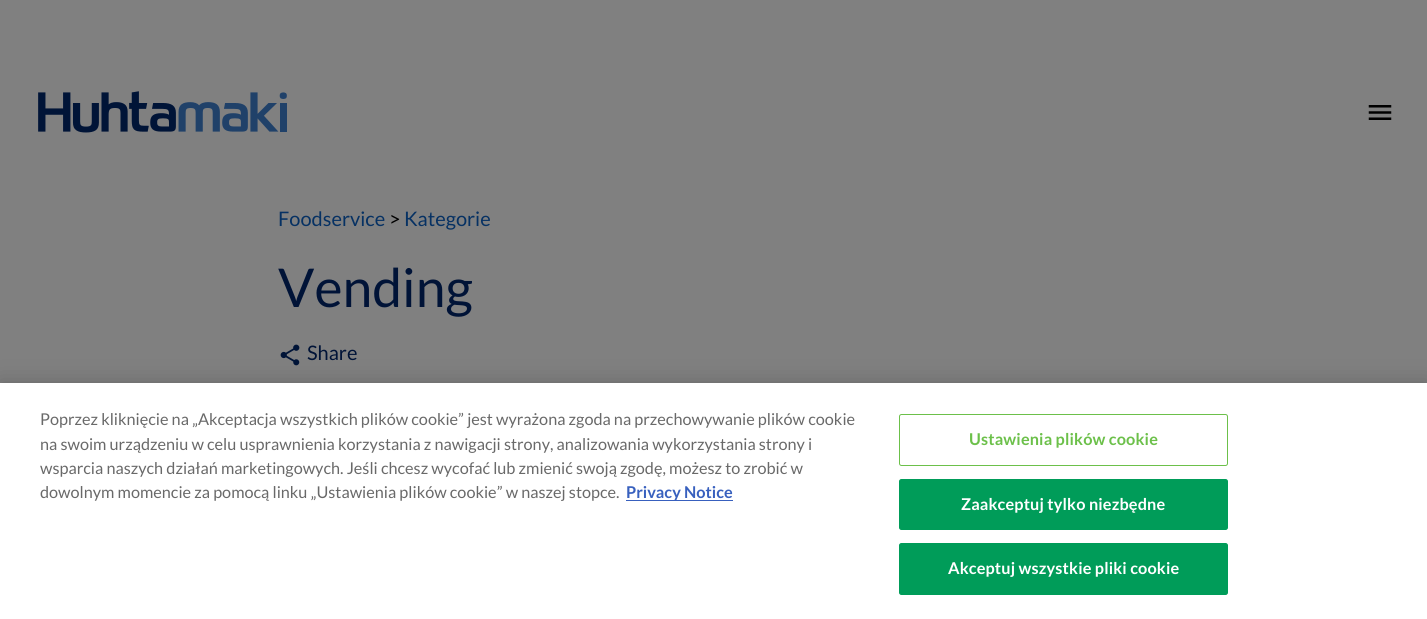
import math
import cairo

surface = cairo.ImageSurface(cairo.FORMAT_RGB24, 1427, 619)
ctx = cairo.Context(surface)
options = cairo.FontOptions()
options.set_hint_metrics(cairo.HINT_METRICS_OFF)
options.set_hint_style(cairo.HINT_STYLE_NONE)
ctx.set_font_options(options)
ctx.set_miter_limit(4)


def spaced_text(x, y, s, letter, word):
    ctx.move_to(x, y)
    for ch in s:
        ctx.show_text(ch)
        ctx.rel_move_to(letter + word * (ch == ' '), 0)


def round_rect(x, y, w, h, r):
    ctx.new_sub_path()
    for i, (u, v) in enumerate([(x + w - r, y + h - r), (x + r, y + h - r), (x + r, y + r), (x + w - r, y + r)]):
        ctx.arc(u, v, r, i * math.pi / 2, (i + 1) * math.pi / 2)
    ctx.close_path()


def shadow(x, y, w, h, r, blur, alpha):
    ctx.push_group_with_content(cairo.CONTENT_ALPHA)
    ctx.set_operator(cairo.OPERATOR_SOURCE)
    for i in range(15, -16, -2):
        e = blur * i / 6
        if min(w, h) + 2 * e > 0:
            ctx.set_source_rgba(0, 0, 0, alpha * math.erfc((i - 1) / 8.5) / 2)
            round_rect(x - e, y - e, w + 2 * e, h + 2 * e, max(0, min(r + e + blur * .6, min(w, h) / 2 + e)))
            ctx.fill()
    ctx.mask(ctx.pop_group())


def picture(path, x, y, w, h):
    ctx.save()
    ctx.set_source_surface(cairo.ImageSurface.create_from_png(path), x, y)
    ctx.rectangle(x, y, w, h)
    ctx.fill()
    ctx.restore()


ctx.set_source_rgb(0.502, 0.502, 0.502)
ctx.paint()
picture("img1.png", 38, 91, 249, 42)
picture("img2.png", 1368, 105, 24, 15)
ctx.select_font_face("Lato")
ctx.set_font_size(20)
ctx.set_source_rgb(0.027, 0.192, 0.388)
ctx.move_to(278, 226)
ctx.show_text("Foodservice")
ctx.set_source_rgb(0, 0, 0)
ctx.move_to(389, 226)
ctx.show_text(">")
ctx.set_source_rgb(0.027, 0.192, 0.388)
ctx.move_to(404, 226)
ctx.show_text("Kategorie")
ctx.set_font_size(53.5)
ctx.set_source_rgb(0, 0.078, 0.216)
ctx.move_to(278, 307)
ctx.show_text("Vending")
picture("img3.png", 280, 344, 20, 22)
ctx.set_font_size(20)
ctx.move_to(307, 360)
ctx.show_text("Share")
ctx.set_source_rgb(0, 0, 0)
shadow(0, 383, 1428, 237, 0, 11, 0.2)
ctx.set_source_rgb(1, 1, 1)
ctx.rectangle(0, 383, 1427, 236)
ctx.fill()
ctx.set_font_size(16.25)
ctx.set_source_rgb(0.412, 0.412, 0.412)
ctx.move_to(40, 425)
ctx.show_text("Poprzez kliknięcie na „Akceptacja wszystkich plików cookie” jest wyrażona zgoda na przechowywanie plików cookie")
ctx.move_to(40, 450)
ctx.show_text("na swoim urządzeniu w celu usprawnienia korzystania z nawigacji strony, analizowania wykorzystania strony i")
ctx.move_to(40, 474)
ctx.show_text("wsparcia naszych działań marketingowych. Jeśli chcesz wycofać lub zmienić swoją zgodę, możesz to zrobić w")
ctx.move_to(40, 498)
ctx.show_text("dowolnym momencie za pomocą linku „Ustawienia plików cookie” w naszej stopce.")
ctx.set_source_rgb(0.22, 0.376, 0.745)
ctx.rectangle(626, 500, 107, 1)
ctx.fill()
ctx.select_font_face("Lato", cairo.FONT_SLANT_NORMAL, cairo.FONT_WEIGHT_BOLD)
ctx.move_to(626, 498)
ctx.show_text("Privacy Notice")
round_rect(899.5, 414.5, 328, 51, 2)
ctx.set_source_rgb(0.424, 0.753, 0.29)
ctx.set_line_width(1)
ctx.stroke()
spaced_text(969, 445, "Ustawienia plików cookie", 0.15, 0)
ctx.set_source_rgb(0, 0.612, 0.349)
round_rect(899.5, 479.5, 328, 50, 2)
ctx.fill_preserve()
ctx.stroke()
ctx.set_source_rgb(1, 1, 1)
spaced_text(961, 510, "Zaakceptuj tylko niezbędne", 0.15, 0)
ctx.set_source_rgb(0, 0.612, 0.349)
round_rect(899.5, 543.5, 328, 51, 2)
ctx.fill_preserve()
ctx.stroke()
ctx.set_source_rgb(1, 1, 1)
spaced_text(948, 574, "Akceptuj wszystkie pliki cookie", 0.15, 0)
surface.write_to_png("page.png")
